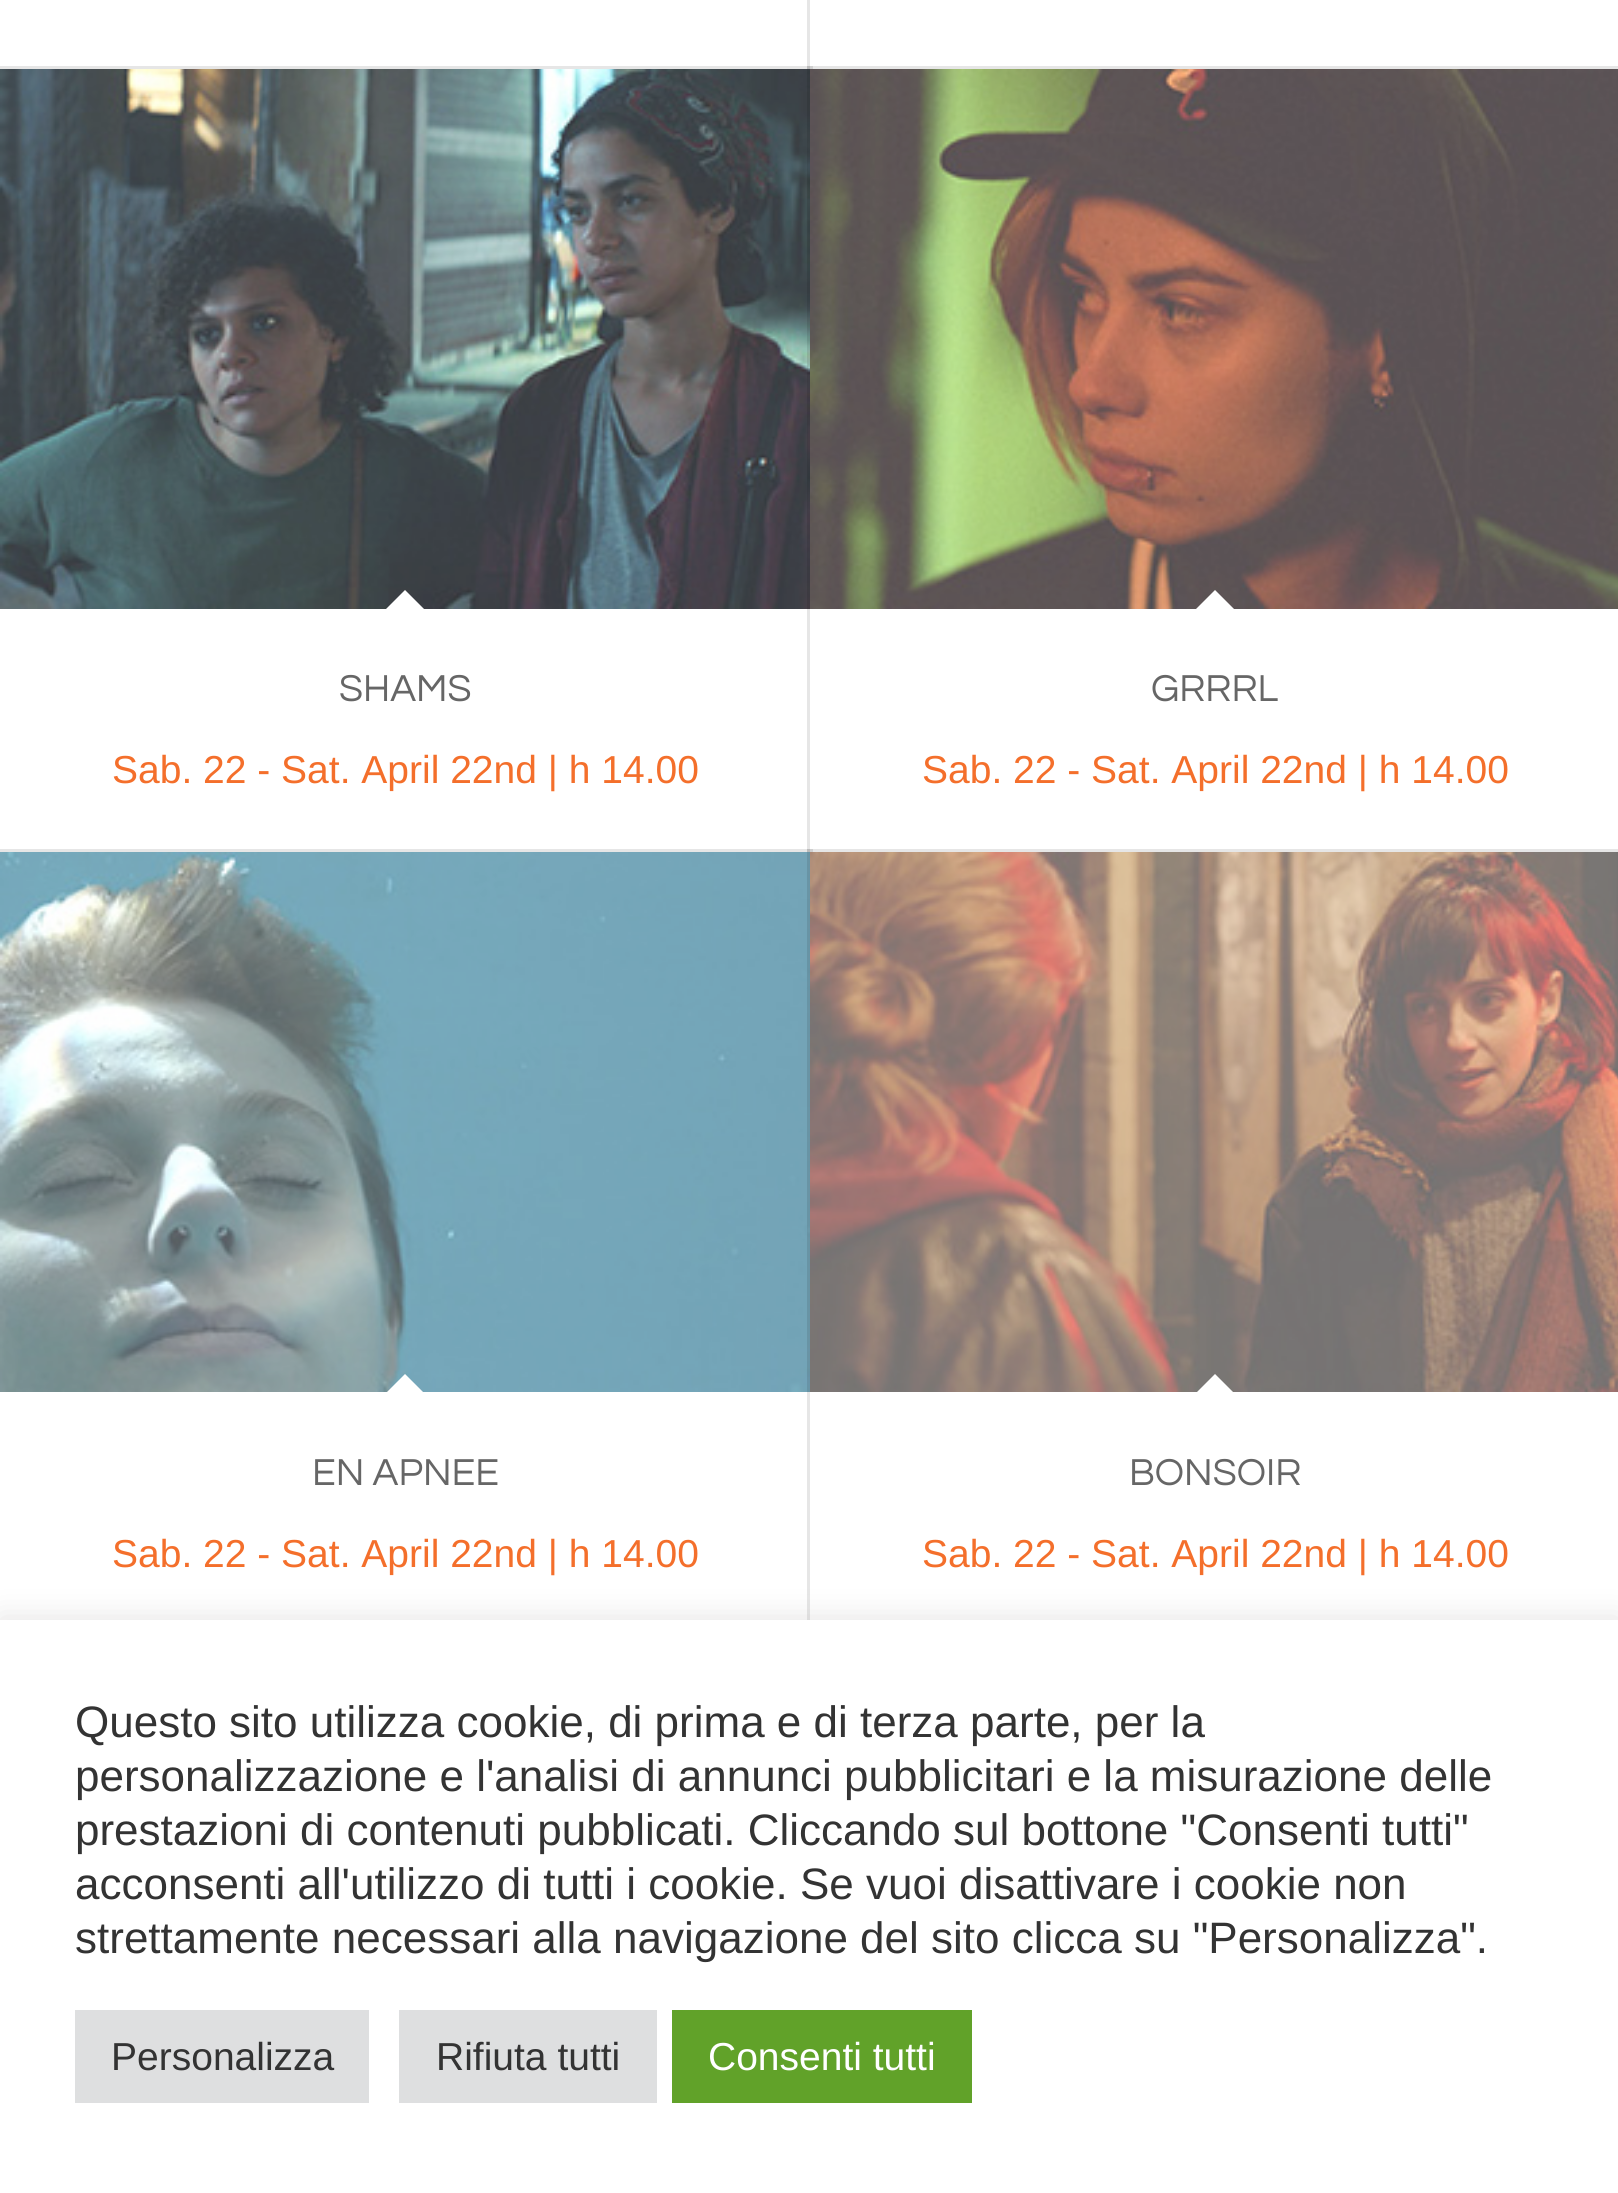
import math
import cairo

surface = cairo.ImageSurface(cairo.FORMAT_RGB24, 1618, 2193)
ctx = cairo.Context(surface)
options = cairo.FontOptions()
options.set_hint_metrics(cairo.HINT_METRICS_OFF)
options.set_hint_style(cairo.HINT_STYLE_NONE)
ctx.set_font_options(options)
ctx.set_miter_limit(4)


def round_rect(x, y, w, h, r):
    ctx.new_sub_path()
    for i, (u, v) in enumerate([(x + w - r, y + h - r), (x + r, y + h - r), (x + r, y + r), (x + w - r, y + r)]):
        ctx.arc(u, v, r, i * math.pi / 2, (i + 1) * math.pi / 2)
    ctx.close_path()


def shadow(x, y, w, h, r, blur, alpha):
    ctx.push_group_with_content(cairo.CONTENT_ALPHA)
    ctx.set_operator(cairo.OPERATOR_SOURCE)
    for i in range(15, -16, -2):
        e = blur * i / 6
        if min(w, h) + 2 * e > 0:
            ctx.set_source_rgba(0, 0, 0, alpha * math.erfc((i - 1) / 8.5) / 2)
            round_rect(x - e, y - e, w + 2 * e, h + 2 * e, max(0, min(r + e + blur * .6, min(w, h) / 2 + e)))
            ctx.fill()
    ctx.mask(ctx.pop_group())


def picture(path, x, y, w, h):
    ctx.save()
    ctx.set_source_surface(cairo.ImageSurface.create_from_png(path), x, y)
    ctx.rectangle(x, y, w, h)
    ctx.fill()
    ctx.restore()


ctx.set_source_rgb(1, 1, 1)
ctx.paint()
ctx.rectangle(808.5, -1.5, 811, 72)
ctx.set_source_rgba(0, 0, 0, 0.1)
ctx.set_line_width(3)
ctx.stroke()
ctx.rectangle(-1.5, 67.5, 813, 786)
ctx.stroke()
ctx.set_source_rgb(1, 1, 1)
ctx.rectangle(807, 69, 3, 3)
ctx.fill()
picture("img1.png", 0, 69, 810, 540)
ctx.new_path()
ctx.move_to(405, 590)
ctx.line_to(426, 611)
ctx.line_to(405, 633)
ctx.line_to(384, 611)
ctx.close_path()
ctx.fill()
ctx.select_font_face("Questrial")
ctx.set_font_size(39)
ctx.set_source_rgb(0.4, 0.4, 0.4)
ctx.move_to(339, 701)
ctx.show_text("SHAMS")
ctx.select_font_face("Liberation Sans")
ctx.set_source_rgb(0.957, 0.435, 0.169)
ctx.move_to(112, 783)
ctx.show_text("Sab. 22 - Sat. April 22nd | h 14.00")
ctx.rectangle(808.5, 67.5, 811, 786)
ctx.set_source_rgba(0, 0, 0, 0.1)
ctx.stroke()
ctx.set_source_rgb(1, 1, 1)
ctx.rectangle(810, 69, 808, 783)
ctx.fill()
picture("img2.png", 810, 69, 808, 540)
ctx.new_path()
ctx.move_to(1215, 590)
ctx.line_to(1236, 611)
ctx.line_to(1215, 633)
ctx.line_to(1194, 611)
ctx.close_path()
ctx.fill()
ctx.select_font_face("Questrial")
ctx.set_source_rgb(0.4, 0.4, 0.4)
ctx.move_to(1151, 701)
ctx.show_text("GRRRL")
ctx.select_font_face("Liberation Sans")
ctx.set_source_rgb(0.957, 0.435, 0.169)
ctx.move_to(922, 783)
ctx.show_text("Sab. 22 - Sat. April 22nd | h 14.00")
ctx.rectangle(-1.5, 850.5, 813, 786)
ctx.set_source_rgba(0, 0, 0, 0.1)
ctx.stroke()
ctx.set_source_rgb(1, 1, 1)
ctx.rectangle(0, 852, 810, 3)
ctx.fill()
picture("img3.png", 0, 852, 810, 540)
ctx.new_path()
ctx.move_to(405, 1374)
ctx.line_to(426, 1395)
ctx.line_to(405, 1416)
ctx.line_to(384, 1395)
ctx.close_path()
ctx.fill()
ctx.select_font_face("Questrial")
ctx.set_source_rgb(0.4, 0.4, 0.4)
ctx.move_to(312, 1485)
ctx.show_text("EN APNEE")
ctx.select_font_face("Liberation Sans")
ctx.set_source_rgb(0.957, 0.435, 0.169)
ctx.move_to(112, 1567)
ctx.show_text("Sab. 22 - Sat. April 22nd | h 14.00")
ctx.rectangle(808.5, 850.5, 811, 786)
ctx.set_source_rgba(0, 0, 0, 0.1)
ctx.stroke()
ctx.set_source_rgb(1, 1, 1)
ctx.rectangle(810, 852, 808, 768)
ctx.fill()
picture("img4.png", 810, 852, 808, 540)
ctx.new_path()
ctx.move_to(1215, 1374)
ctx.line_to(1236, 1395)
ctx.line_to(1215, 1416)
ctx.line_to(1194, 1395)
ctx.close_path()
ctx.fill()
ctx.select_font_face("Questrial")
ctx.set_source_rgb(0.4, 0.4, 0.4)
ctx.move_to(1129, 1485)
ctx.show_text("BONSOIR")
ctx.select_font_face("Liberation Sans")
ctx.set_source_rgb(0.957, 0.435, 0.169)
ctx.move_to(922, 1567)
ctx.show_text("Sab. 22 - Sat. April 22nd | h 14.00")
ctx.set_source_rgb(0.675, 0.671, 0.671)
shadow(0, 1617, 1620, 573, 0, 15, 0.3)
ctx.set_source_rgb(1, 1, 1)
ctx.rectangle(0, 1620, 1618, 573)
ctx.fill()
ctx.set_font_size(44)
ctx.set_source_rgb(0.2, 0.2, 0.2)
ctx.move_to(75, 1737)
ctx.show_text("Questo sito utilizza cookie, di prima e di terza parte, per la")
ctx.move_to(75, 1791)
ctx.show_text("personalizzazione e l'analisi di annunci pubblicitari e la misurazione delle")
ctx.move_to(75, 1845)
ctx.show_text("prestazioni di contenuti pubblicati. Cliccando sul bottone \"Consenti tutti\"")
ctx.move_to(75, 1899)
ctx.show_text("acconsenti all'utilizzo di tutti i cookie. Se vuoi disattivare i cookie non")
ctx.move_to(75, 1953)
ctx.show_text("strettamente necessari alla navigazione del sito clicca su \"Personalizza\".")
ctx.set_source_rgb(0.871, 0.875, 0.878)
ctx.rectangle(75, 2010, 294, 93)
ctx.fill()
ctx.set_font_size(39)
ctx.set_source_rgb(0.2, 0.2, 0.2)
ctx.move_to(111, 2070)
ctx.show_text("Personalizza")
ctx.set_source_rgb(0.871, 0.875, 0.878)
ctx.rectangle(399, 2010, 258, 93)
ctx.fill()
ctx.set_source_rgb(0.2, 0.2, 0.2)
ctx.move_to(436, 2070)
ctx.show_text("Rifiuta tutti")
ctx.set_source_rgb(0.38, 0.635, 0.161)
ctx.rectangle(672, 2010, 300, 93)
ctx.fill()
ctx.set_source_rgb(1, 1, 1)
ctx.move_to(708, 2070)
ctx.show_text("Consenti tutti")
surface.write_to_png("page.png")
